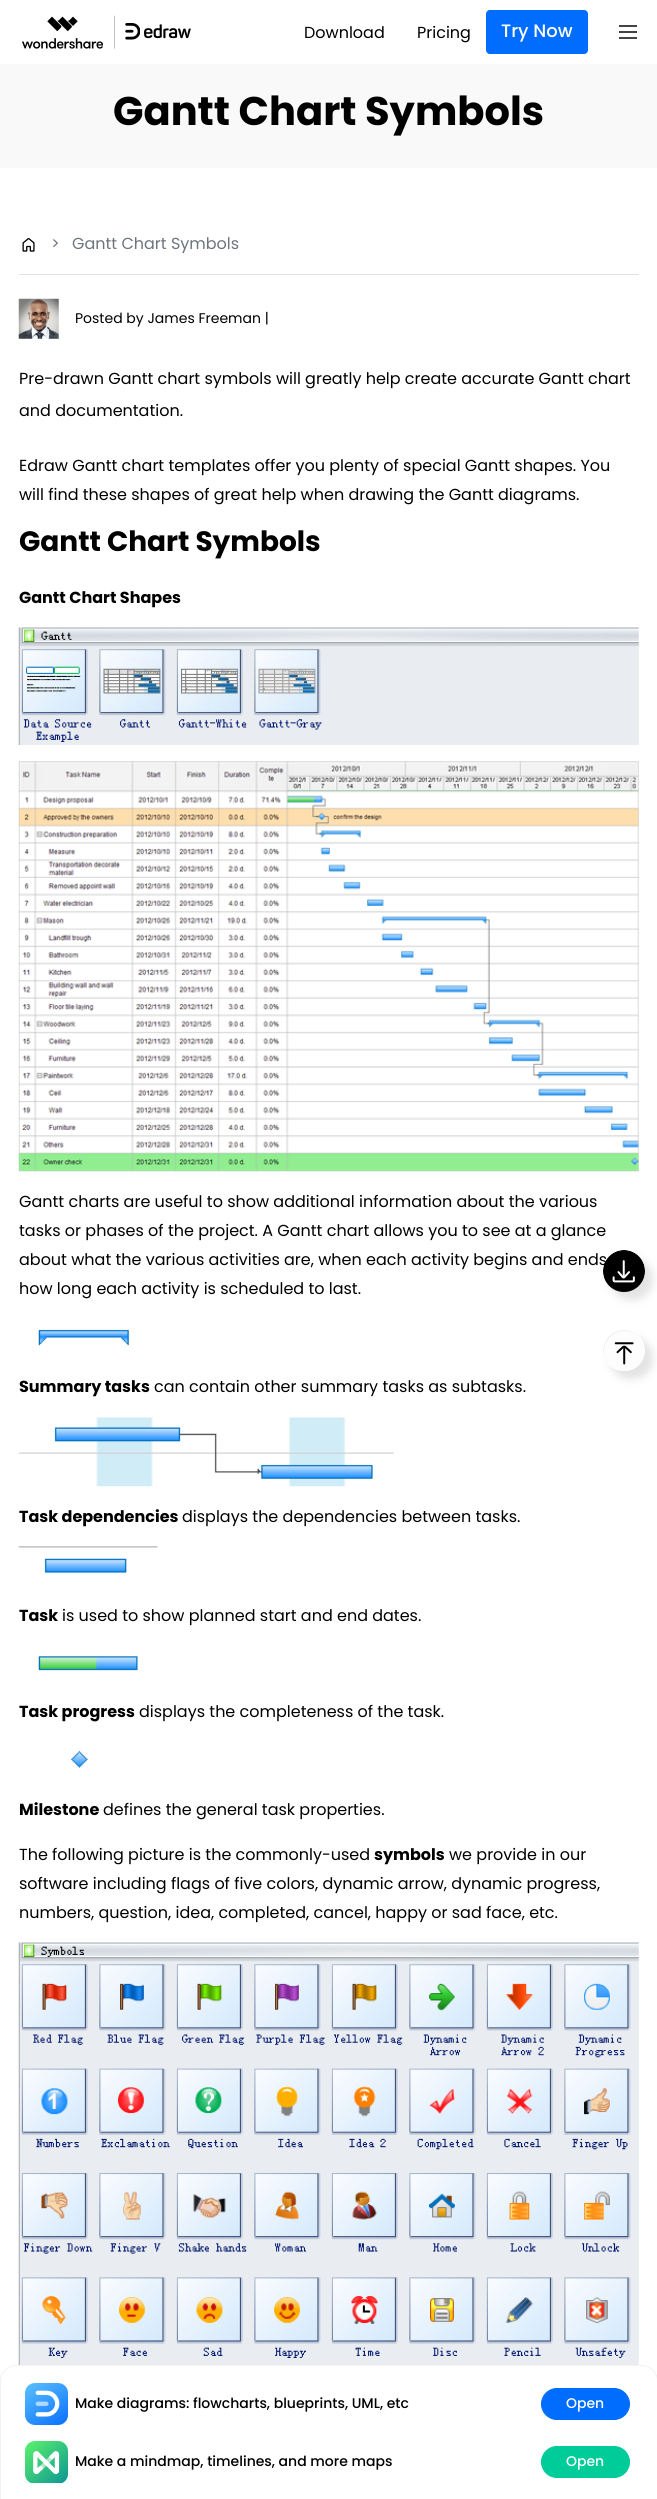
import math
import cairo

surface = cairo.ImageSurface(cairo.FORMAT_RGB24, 657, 2499)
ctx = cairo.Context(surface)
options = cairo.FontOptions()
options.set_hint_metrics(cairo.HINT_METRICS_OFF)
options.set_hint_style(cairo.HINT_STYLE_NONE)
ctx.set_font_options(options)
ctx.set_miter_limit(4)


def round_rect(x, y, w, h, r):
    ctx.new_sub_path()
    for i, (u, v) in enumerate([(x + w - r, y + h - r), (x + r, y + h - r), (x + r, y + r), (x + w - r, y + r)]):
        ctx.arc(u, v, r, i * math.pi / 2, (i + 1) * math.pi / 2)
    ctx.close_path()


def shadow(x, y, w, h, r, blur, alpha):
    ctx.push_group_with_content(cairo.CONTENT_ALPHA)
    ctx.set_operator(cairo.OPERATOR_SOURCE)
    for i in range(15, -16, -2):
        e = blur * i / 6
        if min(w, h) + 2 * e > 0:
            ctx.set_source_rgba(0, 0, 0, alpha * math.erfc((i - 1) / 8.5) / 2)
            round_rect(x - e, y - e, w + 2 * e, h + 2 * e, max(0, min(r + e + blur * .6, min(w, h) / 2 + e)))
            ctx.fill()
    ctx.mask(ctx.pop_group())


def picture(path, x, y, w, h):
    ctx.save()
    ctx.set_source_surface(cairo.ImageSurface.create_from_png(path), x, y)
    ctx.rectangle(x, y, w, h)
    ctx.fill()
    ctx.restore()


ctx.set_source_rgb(1, 1, 1)
ctx.paint()
picture("img1.png", 22, 15, 169, 34)
ctx.select_font_face("Poppins")
ctx.set_font_size(16)
ctx.set_source_rgb(0, 0, 0)
ctx.move_to(304, 38)
ctx.show_text("Download")
ctx.move_to(417, 38)
ctx.show_text("Pricing")
ctx.set_source_rgb(0, 0.427, 1)
round_rect(486.5, 10.5, 101, 43, 3.5)
ctx.fill_preserve()
ctx.set_line_width(1)
ctx.stroke()
ctx.select_font_face("Poppins Medium")
ctx.set_font_size(18)
ctx.set_source_rgb(1, 1, 1)
ctx.move_to(501, 37)
ctx.show_text("Try Now")
ctx.new_path()
ctx.move_to(619, 26)
ctx.line_to(637, 26)
ctx.move_to(619, 32)
ctx.line_to(637, 32)
ctx.move_to(619, 38)
ctx.line_to(637, 38)
ctx.set_source_rgb(0, 0, 0)
ctx.set_line_width(1.5)
ctx.set_line_join(cairo.LINE_JOIN_BEVEL)
ctx.stroke()
ctx.set_source_rgb(0.973, 0.976, 0.98)
ctx.rectangle(0, 64, 657, 104)
ctx.fill()
ctx.select_font_face("Poppins", cairo.FONT_SLANT_NORMAL, cairo.FONT_WEIGHT_BOLD)
ctx.set_font_size(40)
ctx.set_source_rgb(0, 0, 0)
ctx.move_to(113, 125)
ctx.show_text("Gantt Chart Symbols")
ctx.set_source_rgb(0.871, 0.886, 0.902)
ctx.rectangle(19, 274, 620, 1)
ctx.fill()
picture("img2.png", 22, 238, 13, 14)
ctx.select_font_face("Poppins")
ctx.set_font_size(16)
ctx.set_source_rgb(0.424, 0.459, 0.49)
ctx.move_to(51, 249)
ctx.show_text(">")
ctx.move_to(72, 249)
ctx.show_text("Gantt Chart Symbols")
picture("img3.png", 18, 298, 41, 41)
ctx.set_font_size(14)
ctx.set_source_rgb(0, 0, 0)
ctx.move_to(75, 323)
ctx.show_text("Posted by James Freeman |")
ctx.set_font_size(16)
ctx.move_to(19, 384)
ctx.show_text("Pre-drawn Gantt chart symbols will greatly help create accurate Gantt chart")
ctx.move_to(19, 416)
ctx.show_text("and documentation.")
ctx.move_to(19, 471)
ctx.show_text("Edraw Gantt chart templates offer you plenty of special Gantt shapes. You")
ctx.move_to(19, 500)
ctx.show_text("will find these shapes of great help when drawing the Gantt diagrams.")
ctx.select_font_face("Poppins", cairo.FONT_SLANT_NORMAL, cairo.FONT_WEIGHT_BOLD)
ctx.set_font_size(28)
ctx.move_to(19, 551)
ctx.show_text("Gantt Chart Symbols")
ctx.set_font_size(16)
ctx.move_to(19, 603)
ctx.show_text("Gantt Chart Shapes")
picture("img4.png", 18, 627, 621, 118)
picture("img5.png", 18, 761, 621, 411)
ctx.select_font_face("Poppins")
ctx.move_to(19, 1207)
ctx.show_text("Gantt charts are useful to show additional information about the various")
ctx.move_to(19, 1236)
ctx.show_text("tasks or phases of the project. A Gantt chart allows you to see at a glance")
ctx.move_to(19, 1265)
ctx.show_text("about what the various activities are, when each activity begins and ends")
ctx.move_to(19, 1294)
ctx.show_text("how long each activity is scheduled to last.")
picture("img6.png", 38, 1329, 91, 17)
ctx.select_font_face("Poppins", cairo.FONT_SLANT_NORMAL, cairo.FONT_WEIGHT_BOLD)
ctx.move_to(19, 1392)
ctx.show_text("Summary tasks")
ctx.select_font_face("Poppins")
ctx.move_to(154, 1392)
ctx.show_text("can contain other summary tasks as subtasks.")
picture("img7.png", 18, 1417, 376, 70)
ctx.select_font_face("Poppins", cairo.FONT_SLANT_NORMAL, cairo.FONT_WEIGHT_BOLD)
ctx.move_to(19, 1522)
ctx.show_text("Task dependencies")
ctx.select_font_face("Poppins")
ctx.move_to(182, 1522)
ctx.show_text("displays the dependencies between tasks.")
picture("img8.png", 18, 1546, 140, 27)
ctx.select_font_face("Poppins", cairo.FONT_SLANT_NORMAL, cairo.FONT_WEIGHT_BOLD)
ctx.move_to(19, 1621)
ctx.show_text("Task")
ctx.select_font_face("Poppins")
ctx.move_to(62, 1621)
ctx.show_text("is used to show planned start and end dates.")
picture("img9.png", 38, 1656, 100, 15)
ctx.select_font_face("Poppins", cairo.FONT_SLANT_NORMAL, cairo.FONT_WEIGHT_BOLD)
ctx.move_to(19, 1717)
ctx.show_text("Task progress")
ctx.select_font_face("Poppins")
ctx.move_to(139, 1717)
ctx.show_text("displays the completeness of the task.")
picture("img10.png", 71, 1751, 17, 17)
ctx.select_font_face("Poppins", cairo.FONT_SLANT_NORMAL, cairo.FONT_WEIGHT_BOLD)
ctx.move_to(19, 1815)
ctx.show_text("Milestone")
ctx.select_font_face("Poppins")
ctx.move_to(103, 1815)
ctx.show_text("defines the general task properties.")
ctx.move_to(19, 1860)
ctx.show_text("The following picture is the commonly-used")
ctx.select_font_face("Poppins", cairo.FONT_SLANT_NORMAL, cairo.FONT_WEIGHT_BOLD)
ctx.move_to(374, 1860)
ctx.show_text("symbols")
ctx.select_font_face("Poppins")
ctx.move_to(449, 1860)
ctx.show_text("we provide in our")
ctx.move_to(19, 1889)
ctx.show_text("software including flags of five colors, dynamic arrow, dynamic progress,")
ctx.move_to(19, 1918)
ctx.show_text("numbers, question, idea, completed, cancel, happy or sad face, etc.")
picture("img11.png", 18, 1942, 621, 423)
ctx.set_source_rgb(0.482, 0.482, 0.482)
shadow(610, 1258, 43, 42, 21, 4, 0.21)
picture("img12.png", 603, 1250, 42, 42)
shadow(610, 1338, 43, 41, 20.5, 4, 0.21)
picture("img13.png", 603, 1330, 42, 41)
ctx.new_path()
ctx.move_to(16, 2365.5)
ctx.line_to(642, 2365.5)
ctx.curve_to(650.5, 2365.5, 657.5, 2372.5, 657.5, 2381)
ctx.line_to(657.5, 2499.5)
ctx.line_to(0.5, 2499.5)
ctx.line_to(0.5, 2381)
ctx.curve_to(0.5, 2372.5, 7.5, 2365.5, 16, 2365.5)
ctx.close_path()
ctx.set_source_rgb(0.949, 0.949, 0.949)
ctx.set_line_width(1)
ctx.set_line_join(cairo.LINE_JOIN_MITER)
ctx.stroke()
picture("img14.png", 25, 2383, 43, 42)
ctx.select_font_face("Poppins Medium")
ctx.set_font_size(14)
ctx.set_source_rgb(0, 0, 0)
ctx.move_to(75, 2408)
ctx.show_text("Make diagrams: flowcharts, blueprints, UML, etc")
ctx.set_source_rgb(0, 0.427, 1)
round_rect(541.5, 2388.5, 88, 31, 15.5)
ctx.fill_preserve()
ctx.stroke()
ctx.set_source_rgb(1, 1, 1)
ctx.move_to(566, 2408)
ctx.show_text("Open")
picture("img15.png", 25, 2441, 43, 42)
ctx.set_source_rgb(0, 0, 0)
ctx.move_to(75, 2466)
ctx.show_text("Make a mindmap, timelines, and more maps")
ctx.set_source_rgb(0, 0.8, 0.6)
round_rect(541.5, 2446.5, 88, 31, 15.5)
ctx.fill_preserve()
ctx.stroke()
ctx.set_source_rgb(1, 1, 1)
ctx.move_to(566, 2466)
ctx.show_text("Open")
surface.write_to_png("page.png")
